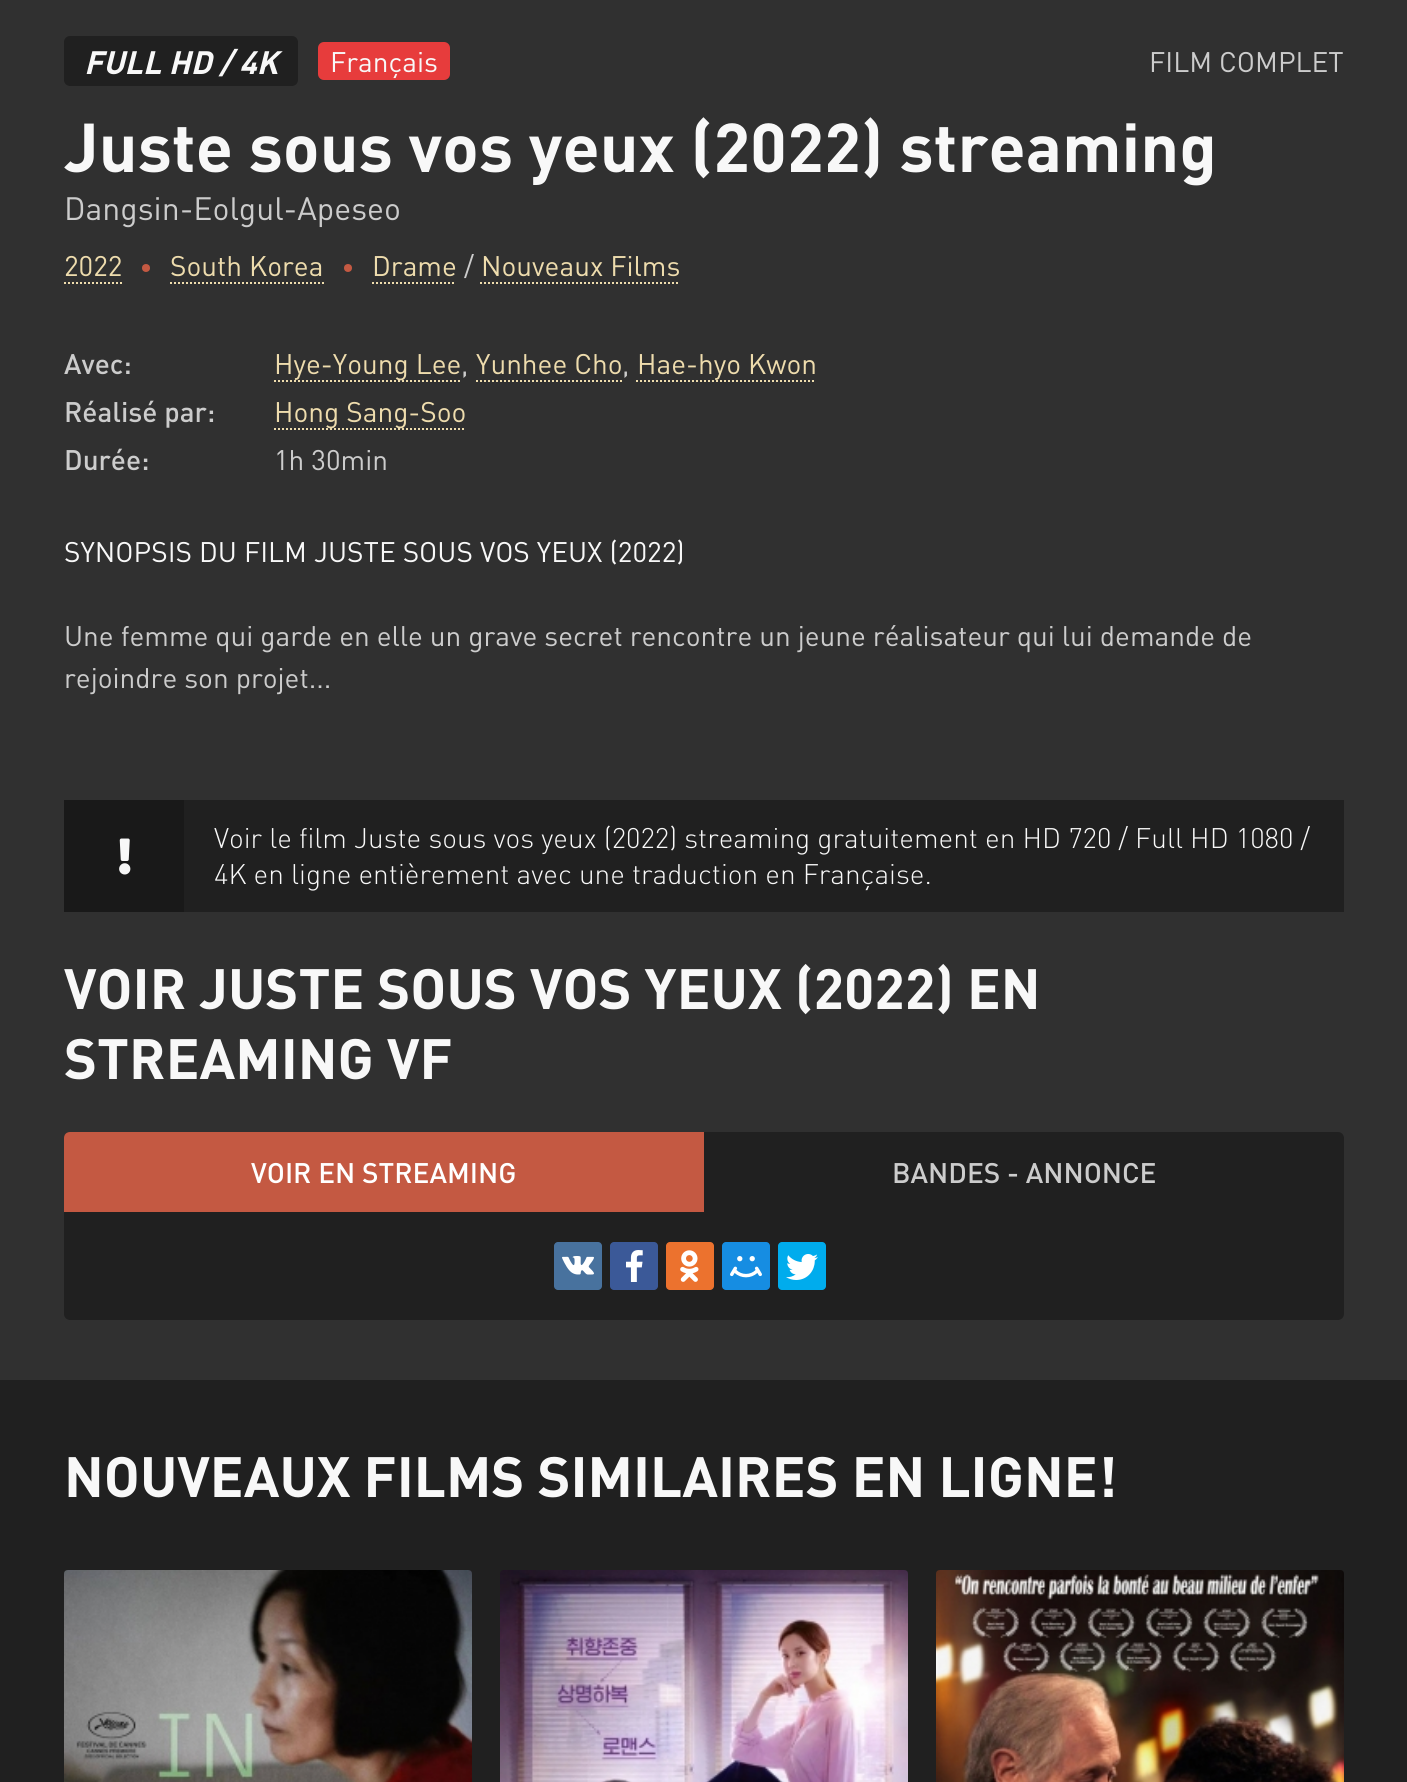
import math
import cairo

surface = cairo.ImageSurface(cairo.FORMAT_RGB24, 1407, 1782)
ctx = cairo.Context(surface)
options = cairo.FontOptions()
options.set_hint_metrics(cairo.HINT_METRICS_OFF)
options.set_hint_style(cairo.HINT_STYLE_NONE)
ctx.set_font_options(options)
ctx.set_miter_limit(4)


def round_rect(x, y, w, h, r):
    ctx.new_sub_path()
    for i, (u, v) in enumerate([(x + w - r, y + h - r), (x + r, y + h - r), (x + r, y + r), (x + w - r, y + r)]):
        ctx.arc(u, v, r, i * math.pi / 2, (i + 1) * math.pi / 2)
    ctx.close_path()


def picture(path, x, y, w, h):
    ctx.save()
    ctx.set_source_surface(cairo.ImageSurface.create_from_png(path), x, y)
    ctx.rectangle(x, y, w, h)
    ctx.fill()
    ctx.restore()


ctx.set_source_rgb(0.188, 0.188, 0.188)
ctx.paint()
ctx.set_source_rgb(0.125, 0.125, 0.125)
round_rect(64, 36, 234, 50, 6)
ctx.fill()
ctx.select_font_face("DIN", cairo.FONT_SLANT_ITALIC, cairo.FONT_WEIGHT_BOLD)
ctx.set_font_size(32)
ctx.set_source_rgb(0.969, 0.969, 0.969)
ctx.move_to(84, 74)
ctx.show_text("FULL HD / 4K")
ctx.set_source_rgb(0.906, 0.235, 0.235)
round_rect(318, 42, 132, 38, 6)
ctx.fill()
ctx.select_font_face("DIN")
ctx.set_font_size(28)
ctx.set_source_rgb(0.969, 0.969, 0.969)
ctx.move_to(330, 72)
ctx.show_text("Français")
ctx.set_source_rgb(0.8, 0.8, 0.8)
ctx.move_to(1149, 72)
ctx.show_text("FILM COMPLET")
ctx.select_font_face("DIN", cairo.FONT_SLANT_NORMAL, cairo.FONT_WEIGHT_BOLD)
ctx.set_font_size(68)
ctx.set_source_rgb(0.969, 0.969, 0.969)
ctx.move_to(64, 172)
ctx.show_text("Juste sous vos yeux (2022) streaming")
ctx.select_font_face("DIN")
ctx.set_font_size(32)
ctx.set_source_rgb(0.8, 0.8, 0.8)
ctx.move_to(64, 220)
ctx.show_text("Dangsin-Eolgul-Apeseo")
ctx.set_font_size(28)
ctx.set_source_rgb(0.933, 0.863, 0.678)
ctx.move_to(64, 276)
ctx.show_text("2022")
ctx.new_path()
ctx.move_to(64, 283)
ctx.line_to(122, 283)
ctx.set_dash([2, 2])
ctx.stroke()
ctx.set_source_rgb(0.769, 0.349, 0.259)
ctx.arc(146, 268, 4, 0, 2 * math.pi)
ctx.fill()
ctx.set_source_rgb(0.933, 0.863, 0.678)
ctx.move_to(170, 276)
ctx.show_text("South Korea")
ctx.new_path()
ctx.move_to(170, 283)
ctx.line_to(324, 283)
ctx.stroke()
ctx.set_source_rgb(0.769, 0.349, 0.259)
ctx.arc(348, 268, 4, 0, 2 * math.pi)
ctx.fill()
ctx.set_source_rgb(0.933, 0.863, 0.678)
ctx.move_to(372, 276)
ctx.show_text("Drame")
ctx.new_path()
ctx.move_to(372, 283)
ctx.line_to(456, 283)
ctx.stroke()
ctx.set_source_rgb(0.8, 0.8, 0.8)
ctx.move_to(464, 276)
ctx.show_text("/")
ctx.set_source_rgb(0.933, 0.863, 0.678)
ctx.move_to(481, 276)
ctx.show_text("Nouveaux Films")
ctx.new_path()
ctx.move_to(480, 283)
ctx.line_to(680, 283)
ctx.stroke()
ctx.select_font_face("DIN Medium")
ctx.set_source_rgb(0.8, 0.8, 0.8)
ctx.move_to(64, 374)
ctx.show_text("Avec:")
ctx.new_path()
ctx.move_to(274, 381)
ctx.line_to(462, 381)
ctx.set_source_rgb(0.933, 0.863, 0.678)
ctx.stroke()
ctx.select_font_face("DIN")
ctx.move_to(274, 374)
ctx.show_text("Hye-Young Lee")
ctx.set_source_rgb(0.8, 0.8, 0.8)
ctx.move_to(461, 374)
ctx.show_text(",")
ctx.set_source_rgb(0.933, 0.863, 0.678)
ctx.move_to(476, 374)
ctx.show_text("Yunhee Cho")
ctx.new_path()
ctx.move_to(476, 381)
ctx.line_to(622, 381)
ctx.stroke()
ctx.set_source_rgb(0.8, 0.8, 0.8)
ctx.move_to(622, 374)
ctx.show_text(",")
ctx.set_source_rgb(0.933, 0.863, 0.678)
ctx.move_to(637, 374)
ctx.show_text("Hae-hyo Kwon")
ctx.new_path()
ctx.move_to(636, 381)
ctx.line_to(816, 381)
ctx.stroke()
ctx.select_font_face("DIN Medium")
ctx.set_source_rgb(0.8, 0.8, 0.8)
ctx.move_to(64, 422)
ctx.show_text("Réalisé par:")
ctx.new_path()
ctx.move_to(274, 429)
ctx.line_to(466, 429)
ctx.set_source_rgb(0.933, 0.863, 0.678)
ctx.stroke()
ctx.select_font_face("DIN")
ctx.move_to(274, 422)
ctx.show_text("Hong Sang-Soo")
ctx.select_font_face("DIN Medium")
ctx.set_source_rgb(0.8, 0.8, 0.8)
ctx.move_to(64, 470)
ctx.show_text("Durée:")
ctx.select_font_face("DIN")
ctx.move_to(274, 470)
ctx.show_text("1h 30min")
ctx.set_source_rgb(0.969, 0.969, 0.969)
ctx.move_to(64, 562)
ctx.show_text("SYNOPSIS DU FILM JUSTE SOUS VOS YEUX (2022)")
ctx.set_source_rgb(0.8, 0.8, 0.8)
ctx.move_to(64, 646)
ctx.show_text("Une femme qui garde en elle un grave secret rencontre un jeune réalisateur qui lui demande de")
ctx.move_to(64, 688)
ctx.show_text("rejoindre son projet...")
ctx.set_source_rgb(0.125, 0.125, 0.125)
ctx.rectangle(184, 800, 1160, 112)
ctx.fill()
ctx.set_source_rgb(0.098, 0.098, 0.098)
ctx.rectangle(64, 800, 120, 112)
ctx.fill()
picture("img1.png", 119, 838, 12, 37)
ctx.select_font_face("DIN Light")
ctx.set_source_rgb(0.969, 0.969, 0.969)
ctx.move_to(214, 848)
ctx.show_text("Voir le film Juste sous vos yeux (2022) streaming gratuitement en HD 720 / Full HD 1080 /")
ctx.move_to(214, 884)
ctx.show_text("4K en ligne entièrement avec une traduction en Française.")
ctx.select_font_face("DIN", cairo.FONT_SLANT_NORMAL, cairo.FONT_WEIGHT_BOLD)
ctx.set_font_size(56)
ctx.move_to(64, 1009)
ctx.show_text("VOIR JUSTE SOUS VOS YEUX (2022) EN")
ctx.move_to(64, 1079)
ctx.show_text("STREAMING VF")
ctx.set_source_rgb(0.125, 0.125, 0.125)
round_rect(64, 1132, 1280, 188, 6)
ctx.fill()
ctx.set_source_rgb(0.769, 0.349, 0.259)
ctx.new_path()
ctx.move_to(70, 1132)
ctx.line_to(704, 1132)
ctx.line_to(704, 1212)
ctx.line_to(64, 1212)
ctx.line_to(64, 1138)
ctx.curve_to(64, 1134.5, 66.5, 1132, 70, 1132)
ctx.close_path()
ctx.fill()
ctx.select_font_face("DIN Medium")
ctx.set_font_size(28)
ctx.set_source_rgb(1, 1, 1)
ctx.move_to(251, 1183)
ctx.show_text("VOIR EN STREAMING")
ctx.set_source_rgb(0.8, 0.8, 0.8)
ctx.move_to(892, 1183)
ctx.show_text("BANDES - ANNONCE")
ctx.set_source_rgb(0.282, 0.447, 0.62)
round_rect(554, 1242, 48, 48, 4)
ctx.fill()
picture("img2.png", 562, 1256, 32, 19)
ctx.set_source_rgb(0.231, 0.349, 0.596)
round_rect(610, 1242, 48, 48, 4)
ctx.fill()
picture("img3.png", 626, 1250, 17, 32)
ctx.set_source_rgb(0.922, 0.447, 0.18)
round_rect(666, 1242, 48, 48, 4)
ctx.fill()
picture("img4.png", 680, 1250, 19, 32)
ctx.set_source_rgb(0.086, 0.553, 0.886)
round_rect(722, 1242, 48, 48, 4)
ctx.fill()
picture("img5.png", 730, 1256, 32, 22)
ctx.set_source_rgb(0, 0.675, 0.929)
round_rect(778, 1242, 48, 48, 4)
ctx.fill()
picture("img6.png", 786, 1254, 32, 26)
ctx.set_source_rgb(0.125, 0.125, 0.125)
ctx.rectangle(0, 1380, 1407, 402)
ctx.fill()
ctx.select_font_face("DIN", cairo.FONT_SLANT_NORMAL, cairo.FONT_WEIGHT_BOLD)
ctx.set_font_size(56)
ctx.set_source_rgb(0.969, 0.969, 0.969)
ctx.move_to(64, 1497)
ctx.show_text("NOUVEAUX FILMS SIMILAIRES EN LIGNE!")
picture("img7.png", 64, 1570, 408, 212)
picture("img8.png", 500, 1570, 408, 212)
picture("img9.png", 936, 1570, 408, 212)
surface.write_to_png("page.png")
